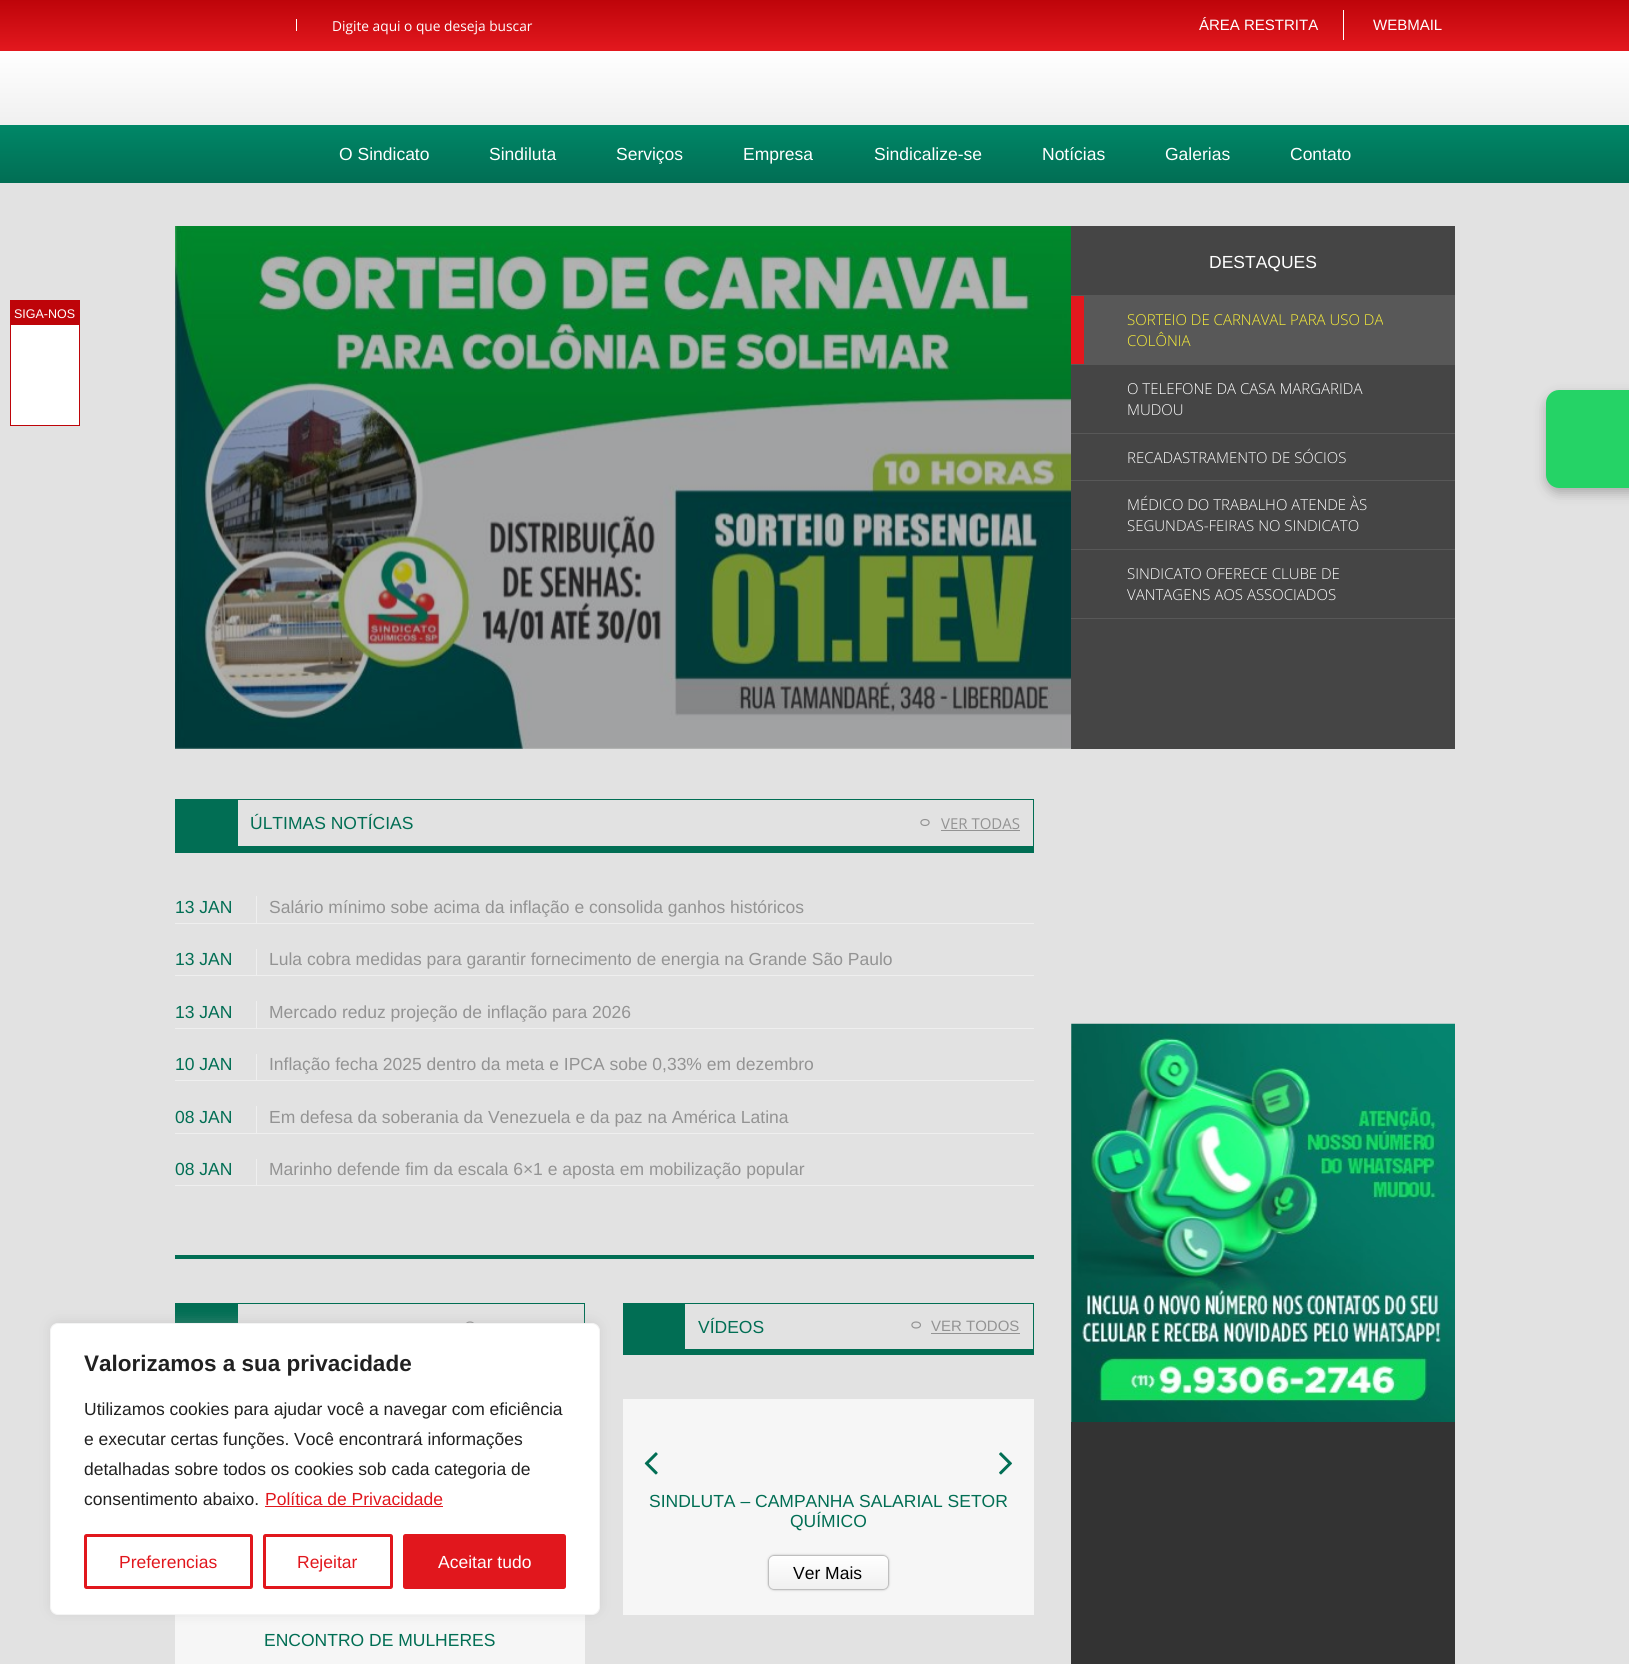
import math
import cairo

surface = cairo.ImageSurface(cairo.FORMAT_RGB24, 1629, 1664)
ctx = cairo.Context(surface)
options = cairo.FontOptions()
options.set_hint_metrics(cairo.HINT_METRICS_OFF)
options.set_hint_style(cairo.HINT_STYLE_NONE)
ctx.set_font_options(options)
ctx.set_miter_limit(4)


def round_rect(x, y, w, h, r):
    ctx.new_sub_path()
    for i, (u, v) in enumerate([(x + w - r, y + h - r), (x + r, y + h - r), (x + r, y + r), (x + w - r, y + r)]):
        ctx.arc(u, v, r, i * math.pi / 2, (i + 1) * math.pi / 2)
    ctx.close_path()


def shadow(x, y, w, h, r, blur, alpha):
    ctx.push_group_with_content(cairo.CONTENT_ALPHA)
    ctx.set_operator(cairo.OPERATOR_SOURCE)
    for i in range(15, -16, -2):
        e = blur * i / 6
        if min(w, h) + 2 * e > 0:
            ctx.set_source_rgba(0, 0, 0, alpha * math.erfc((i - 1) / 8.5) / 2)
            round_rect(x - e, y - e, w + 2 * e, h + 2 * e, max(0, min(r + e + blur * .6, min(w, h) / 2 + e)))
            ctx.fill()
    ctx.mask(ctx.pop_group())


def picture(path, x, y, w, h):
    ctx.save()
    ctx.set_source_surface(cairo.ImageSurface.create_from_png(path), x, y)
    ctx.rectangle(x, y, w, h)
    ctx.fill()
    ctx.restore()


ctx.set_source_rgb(0.886, 0.886, 0.886)
ctx.paint()
gradient = cairo.LinearGradient(815, 0, 815, 51)
gradient.add_color_stop_rgba(0, 0.745, 0.016, 0.039, 1)
gradient.add_color_stop_rgba(1, 0.89, 0.094, 0.118, 1)
ctx.set_source(gradient)
ctx.rectangle(0, 0, 1629, 51)
ctx.fill()
ctx.set_source_rgb(1, 1, 1)
ctx.rectangle(296, 19, 1, 12)
ctx.fill()
ctx.select_font_face("Open Sans")
ctx.set_font_size(13.75)
ctx.move_to(332, 31)
ctx.show_text("Digite aqui o que deseja buscar")
ctx.rectangle(1343, 10, 1, 30)
ctx.fill()
ctx.select_font_face("Liberation Sans")
ctx.set_font_size(15)
ctx.move_to(1199, 30)
ctx.show_text("ÁREA RESTRITA")
ctx.move_to(1373, 30)
ctx.show_text("WEBMAIL")
gradient = cairo.LinearGradient(815, 51, 815, 125)
gradient.add_color_stop_rgba(0, 1, 1, 1, 1)
gradient.add_color_stop_rgba(1, 0.941, 0.941, 0.941, 1)
ctx.set_source(gradient)
ctx.rectangle(0, 51, 1629, 74)
ctx.fill()
gradient = cairo.LinearGradient(815, 125, 815, 183)
gradient.add_color_stop_rgba(0, 0, 0.529, 0.404, 1)
gradient.add_color_stop_rgba(1, 0.004, 0.431, 0.329, 1)
ctx.set_source(gradient)
ctx.rectangle(0, 125, 1629, 58)
ctx.fill()
ctx.set_font_size(17.5)
ctx.set_source_rgb(1, 1, 1)
ctx.move_to(339, 160)
ctx.show_text("O Sindicato")
ctx.move_to(489, 160)
ctx.show_text("Sindiluta")
ctx.move_to(616, 160)
ctx.show_text("Serviços")
ctx.move_to(743, 160)
ctx.show_text("Empresa")
ctx.move_to(874, 160)
ctx.show_text("Sindicalize-se")
ctx.move_to(1042, 160)
ctx.show_text("Notícias")
ctx.move_to(1165, 160)
ctx.show_text("Galerias")
ctx.move_to(1290, 160)
ctx.show_text("Contato")
ctx.rectangle(11, 325, 68, 100)
ctx.fill()
ctx.rectangle(10.5, 300.5, 69, 125)
ctx.set_source_rgb(0.745, 0.016, 0.039)
ctx.set_line_width(1)
ctx.stroke()
ctx.rectangle(11, 301, 68, 24)
ctx.fill()
ctx.set_font_size(12.5)
ctx.set_source_rgb(1, 1, 1)
ctx.move_to(14, 318)
ctx.show_text("SIGA-NOS")
picture("img1.png", 175, 226, 896, 523)
ctx.set_source_rgb(0.271, 0.271, 0.271)
ctx.rectangle(1071, 226, 384, 523)
ctx.fill()
ctx.set_font_size(17.5)
ctx.set_source_rgb(1, 1, 1)
ctx.move_to(1209, 268)
ctx.show_text("DESTAQUES")
ctx.set_source_rgb(0.345, 0.345, 0.345)
ctx.rectangle(1071, 295, 384, 1)
ctx.fill()
ctx.rectangle(1071, 364, 384, 1)
ctx.fill()
ctx.rectangle(1084, 296, 371, 68)
ctx.fill()
ctx.set_source_rgb(0.89, 0.094, 0.118)
ctx.rectangle(1071, 296, 13, 68)
ctx.fill()
ctx.select_font_face("Open Sans Light")
ctx.set_font_size(15)
ctx.set_source_rgb(0.984, 0.945, 0.22)
ctx.move_to(1127, 325)
ctx.show_text("SORTEIO DE CARNAVAL PARA USO DA")
ctx.move_to(1127, 346)
ctx.show_text("COLÔNIA")
ctx.set_source_rgb(0.345, 0.345, 0.345)
ctx.rectangle(1071, 433, 384, 1)
ctx.fill()
ctx.set_source_rgb(1, 1, 1)
ctx.move_to(1127, 394)
ctx.show_text("O TELEFONE DA CASA MARGARIDA")
ctx.move_to(1127, 415)
ctx.show_text("MUDOU")
ctx.set_source_rgb(0.345, 0.345, 0.345)
ctx.rectangle(1071, 480, 384, 1)
ctx.fill()
ctx.set_source_rgb(1, 1, 1)
ctx.move_to(1127, 463)
ctx.show_text("RECADASTRAMENTO DE SÓCIOS")
ctx.set_source_rgb(0.345, 0.345, 0.345)
ctx.rectangle(1071, 549, 384, 1)
ctx.fill()
ctx.set_source_rgb(1, 1, 1)
ctx.move_to(1127, 510)
ctx.show_text("MÉDICO DO TRABALHO ATENDE ÀS")
ctx.move_to(1127, 531)
ctx.show_text("SEGUNDAS-FEIRAS NO SINDICATO")
ctx.set_source_rgb(0.345, 0.345, 0.345)
ctx.rectangle(1071, 618, 384, 1)
ctx.fill()
ctx.set_source_rgb(1, 1, 1)
ctx.move_to(1127, 579)
ctx.show_text("SINDICATO OFERECE CLUBE DE")
ctx.move_to(1127, 600)
ctx.show_text("VANTAGENS AOS ASSOCIADOS")
ctx.set_source_rgb(0.004, 0.431, 0.329)
ctx.rectangle(175, 799, 859, 1)
ctx.fill()
ctx.rectangle(1033, 799, 1, 54)
ctx.fill()
ctx.rectangle(175, 846, 859, 7)
ctx.fill()
ctx.rectangle(175, 800, 63, 46)
ctx.fill()
ctx.select_font_face("Liberation Sans")
ctx.set_font_size(17.5)
ctx.move_to(250, 829)
ctx.show_text("ÚLTIMAS NOTÍCIAS")
ctx.new_path()
ctx.move_to(925, 819.5)
ctx.curve_to(930.5, 819.5, 930.5, 825.5, 925, 825.5)
ctx.curve_to(919.5, 825.5, 919.5, 819.5, 925, 819.5)
ctx.close_path()
ctx.set_source_rgb(0.576, 0.576, 0.576)
ctx.set_line_width(1.2)
ctx.stroke()
ctx.select_font_face("Open Sans")
ctx.set_font_size(15)
ctx.move_to(941, 829)
ctx.show_text("VER TODAS")
ctx.rectangle(941, 830, 79, 1)
ctx.fill()
ctx.set_source_rgb(0.004, 0.431, 0.329)
ctx.rectangle(175, 1255, 859, 4)
ctx.fill()
ctx.set_source_rgb(0.937, 0.937, 0.937)
ctx.rectangle(175, 923, 859, 1)
ctx.fill()
ctx.select_font_face("Liberation Sans")
ctx.set_font_size(17.5)
ctx.set_source_rgb(0.004, 0.431, 0.329)
ctx.move_to(175, 913)
ctx.show_text("13 JAN")
ctx.set_source_rgb(0.937, 0.937, 0.937)
ctx.rectangle(256, 896, 1, 27)
ctx.fill()
ctx.set_source_rgb(0.576, 0.576, 0.576)
ctx.move_to(269, 913)
ctx.show_text("Salário mínimo sobe acima da inflação e consolida ganhos históricos")
ctx.set_source_rgb(0.937, 0.937, 0.937)
ctx.rectangle(175, 975, 859, 1)
ctx.fill()
ctx.set_source_rgb(0.004, 0.431, 0.329)
ctx.move_to(175, 965)
ctx.show_text("13 JAN")
ctx.set_source_rgb(0.937, 0.937, 0.937)
ctx.rectangle(256, 949, 1, 26)
ctx.fill()
ctx.set_source_rgb(0.576, 0.576, 0.576)
ctx.move_to(269, 965)
ctx.show_text("Lula cobra medidas para garantir fornecimento de energia na Grande São Paulo")
ctx.set_source_rgb(0.937, 0.937, 0.937)
ctx.rectangle(175, 1028, 859, 1)
ctx.fill()
ctx.set_source_rgb(0.004, 0.431, 0.329)
ctx.move_to(175, 1018)
ctx.show_text("13 JAN")
ctx.set_source_rgb(0.937, 0.937, 0.937)
ctx.rectangle(256, 1001, 1, 27)
ctx.fill()
ctx.set_source_rgb(0.576, 0.576, 0.576)
ctx.move_to(269, 1018)
ctx.show_text("Mercado reduz projeção de inflação para 2026")
ctx.set_source_rgb(0.937, 0.937, 0.937)
ctx.rectangle(175, 1080, 859, 1)
ctx.fill()
ctx.set_source_rgb(0.004, 0.431, 0.329)
ctx.move_to(175, 1070)
ctx.show_text("10 JAN")
ctx.set_source_rgb(0.937, 0.937, 0.937)
ctx.rectangle(256, 1054, 1, 26)
ctx.fill()
ctx.set_source_rgb(0.576, 0.576, 0.576)
ctx.move_to(269, 1070)
ctx.show_text("Inflação fecha 2025 dentro da meta e IPCA sobe 0,33% em dezembro")
ctx.set_source_rgb(0.937, 0.937, 0.937)
ctx.rectangle(175, 1133, 859, 1)
ctx.fill()
ctx.set_source_rgb(0.004, 0.431, 0.329)
ctx.move_to(175, 1123)
ctx.show_text("08 JAN")
ctx.set_source_rgb(0.937, 0.937, 0.937)
ctx.rectangle(256, 1106, 1, 27)
ctx.fill()
ctx.set_source_rgb(0.576, 0.576, 0.576)
ctx.move_to(269, 1123)
ctx.show_text("Em defesa da soberania da Venezuela e da paz na América Latina")
ctx.set_source_rgb(0.937, 0.937, 0.937)
ctx.rectangle(175, 1185, 859, 1)
ctx.fill()
ctx.set_source_rgb(0.004, 0.431, 0.329)
ctx.move_to(175, 1175)
ctx.show_text("08 JAN")
ctx.set_source_rgb(0.937, 0.937, 0.937)
ctx.rectangle(256, 1159, 1, 26)
ctx.fill()
ctx.set_source_rgb(0.576, 0.576, 0.576)
ctx.move_to(269, 1175)
ctx.show_text("Marinho defende fim da escala 6×1 e aposta em mobilização popular")
ctx.set_source_rgb(0.004, 0.431, 0.329)
ctx.rectangle(623, 1303, 411, 1)
ctx.fill()
ctx.rectangle(1033, 1303, 1, 52)
ctx.fill()
ctx.rectangle(623, 1349, 411, 6)
ctx.fill()
ctx.rectangle(623, 1304, 62, 45)
ctx.fill()
ctx.move_to(698, 1333)
ctx.show_text("VÍDEOS")
ctx.new_path()
ctx.move_to(916, 1322)
ctx.curve_to(922, 1322, 922, 1328, 916, 1328)
ctx.curve_to(910.5, 1328, 910.5, 1322, 916, 1322)
ctx.close_path()
ctx.set_source_rgb(0.576, 0.576, 0.576)
ctx.stroke()
ctx.set_font_size(15)
ctx.move_to(931, 1331)
ctx.show_text("VER TODOS")
ctx.rectangle(931, 1333, 89, 1)
ctx.fill()
ctx.set_source_rgb(0.961, 0.961, 0.961)
ctx.rectangle(623, 1399, 411, 216)
ctx.fill()
picture("img2.png", 644, 1452, 14, 23)
picture("img3.png", 999, 1452, 13, 23)
ctx.set_font_size(17.5)
ctx.set_source_rgb(0.004, 0.431, 0.329)
ctx.move_to(649, 1507)
ctx.show_text("SINDLUTA – CAMPANHA SALARIAL SETOR")
ctx.move_to(790, 1527)
ctx.show_text("QUÍMICO")
ctx.save()
ctx.set_fill_rule(cairo.FILL_RULE_EVEN_ODD)
ctx.new_path()
ctx.move_to(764, 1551)
ctx.line_to(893, 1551)
ctx.line_to(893, 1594)
ctx.line_to(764, 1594)
ctx.close_path()
ctx.move_to(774, 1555)
ctx.line_to(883, 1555)
ctx.curve_to(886.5, 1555, 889, 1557.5, 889, 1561)
ctx.line_to(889, 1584)
ctx.curve_to(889, 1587.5, 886.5, 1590, 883, 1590)
ctx.line_to(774, 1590)
ctx.curve_to(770.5, 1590, 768, 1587.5, 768, 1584)
ctx.line_to(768, 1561)
ctx.curve_to(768, 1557.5, 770.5, 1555, 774, 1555)
ctx.close_path()
ctx.clip()
ctx.set_source_rgb(0.749, 0.749, 0.749)
shadow(768, 1555, 121, 35, 6, 1, 1)
ctx.restore()
ctx.save()
round_rect(768, 1555, 121, 35, 6)
ctx.clip()
gradient = cairo.LinearGradient(828, 1556, 828, 1589)
gradient.add_color_stop_rgba(0, 1, 1, 1, 1)
gradient.add_color_stop_rgba(1, 0.941, 0.941, 0.941, 1)
ctx.set_source(gradient)
ctx.rectangle(768, 1556, 121, 33)
ctx.fill()
ctx.restore()
round_rect(768.5, 1555.5, 120, 34, 5.5)
ctx.set_source_rgb(0.749, 0.749, 0.749)
ctx.set_line_width(1)
ctx.stroke()
ctx.set_source_rgb(0, 0, 0)
ctx.move_to(793, 1579)
ctx.show_text("Ver Mais")
ctx.set_source_rgb(0.004, 0.431, 0.329)
ctx.rectangle(175, 1303, 410, 1)
ctx.fill()
ctx.rectangle(584, 1303, 1, 20)
ctx.fill()
ctx.rectangle(175, 1304, 63, 19)
ctx.fill()
ctx.new_path()
ctx.move_to(470, 1322)
ctx.curve_to(475.5, 1322, 475.5, 1328, 470, 1328)
ctx.curve_to(464.5, 1328, 464.5, 1322, 470, 1322)
ctx.close_path()
ctx.set_source_rgb(0.576, 0.576, 0.576)
ctx.set_line_width(1.2)
ctx.stroke()
ctx.set_source_rgb(0.961, 0.961, 0.961)
ctx.rectangle(175, 1615, 410, 49)
ctx.fill()
ctx.set_source_rgb(0.004, 0.431, 0.329)
ctx.move_to(264, 1646)
ctx.show_text("ENCONTRO DE MULHERES")
picture("img4.png", 1071, 1023, 384, 399)
ctx.set_source_rgb(0.2, 0.2, 0.2)
ctx.rectangle(1071, 1422, 384, 242)
ctx.fill()
ctx.set_source_rgb(0, 0, 0)
shadow(1546, 395, 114, 98, 13, 6, 0.25)
ctx.set_source_rgb(0.145, 0.827, 0.4)
ctx.new_path()
ctx.move_to(1559, 390)
ctx.line_to(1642, 390)
ctx.line_to(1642, 488)
ctx.line_to(1559, 488)
ctx.curve_to(1552, 488, 1546, 482, 1546, 475)
ctx.line_to(1546, 403)
ctx.curve_to(1546, 396, 1552, 390, 1559, 390)
ctx.close_path()
ctx.fill()
ctx.set_source_rgb(0.675, 0.671, 0.671)
shadow(50, 1321, 550, 293, 8, 6, 0.3)
ctx.set_source_rgb(1, 1, 1)
round_rect(50.5, 1323.5, 549, 291, 7.5)
ctx.fill_preserve()
ctx.set_source_rgb(0.957, 0.957, 0.957)
ctx.set_line_width(1)
ctx.stroke()
ctx.select_font_face("Liberation Sans", cairo.FONT_SLANT_NORMAL, cairo.FONT_WEIGHT_BOLD)
ctx.set_font_size(22.5)
ctx.set_source_rgb(0.129, 0.129, 0.129)
ctx.move_to(84, 1371)
ctx.show_text("Valorizamos a sua privacidade")
ctx.select_font_face("Liberation Sans")
ctx.set_font_size(17.5)
ctx.move_to(84, 1415)
ctx.show_text("Utilizamos cookies para ajudar você a navegar com eficiência")
ctx.move_to(84, 1445)
ctx.show_text("e executar certas funções. Você encontrará informações")
ctx.move_to(84, 1475)
ctx.show_text("detalhadas sobre todos os cookies sob cada categoria de")
ctx.move_to(84, 1505)
ctx.show_text("consentimento abaixo.")
ctx.set_source_rgb(0.882, 0.09, 0.114)
ctx.move_to(265, 1505)
ctx.show_text("Política de Privacidade")
ctx.rectangle(265, 1506, 178, 1)
ctx.fill()
round_rect(85.5, 1535.5, 166, 52, 1)
ctx.set_line_width(3)
ctx.stroke()
ctx.move_to(119, 1568)
ctx.show_text("Preferencias")
round_rect(264.5, 1535.5, 127, 52, 1)
ctx.stroke()
ctx.move_to(297, 1568)
ctx.show_text("Rejeitar")
round_rect(404.5, 1535.5, 160, 52, 1)
ctx.fill_preserve()
ctx.stroke()
ctx.set_source_rgb(1, 1, 1)
ctx.move_to(438, 1568)
ctx.show_text("Aceitar tudo")
surface.write_to_png("page.png")
